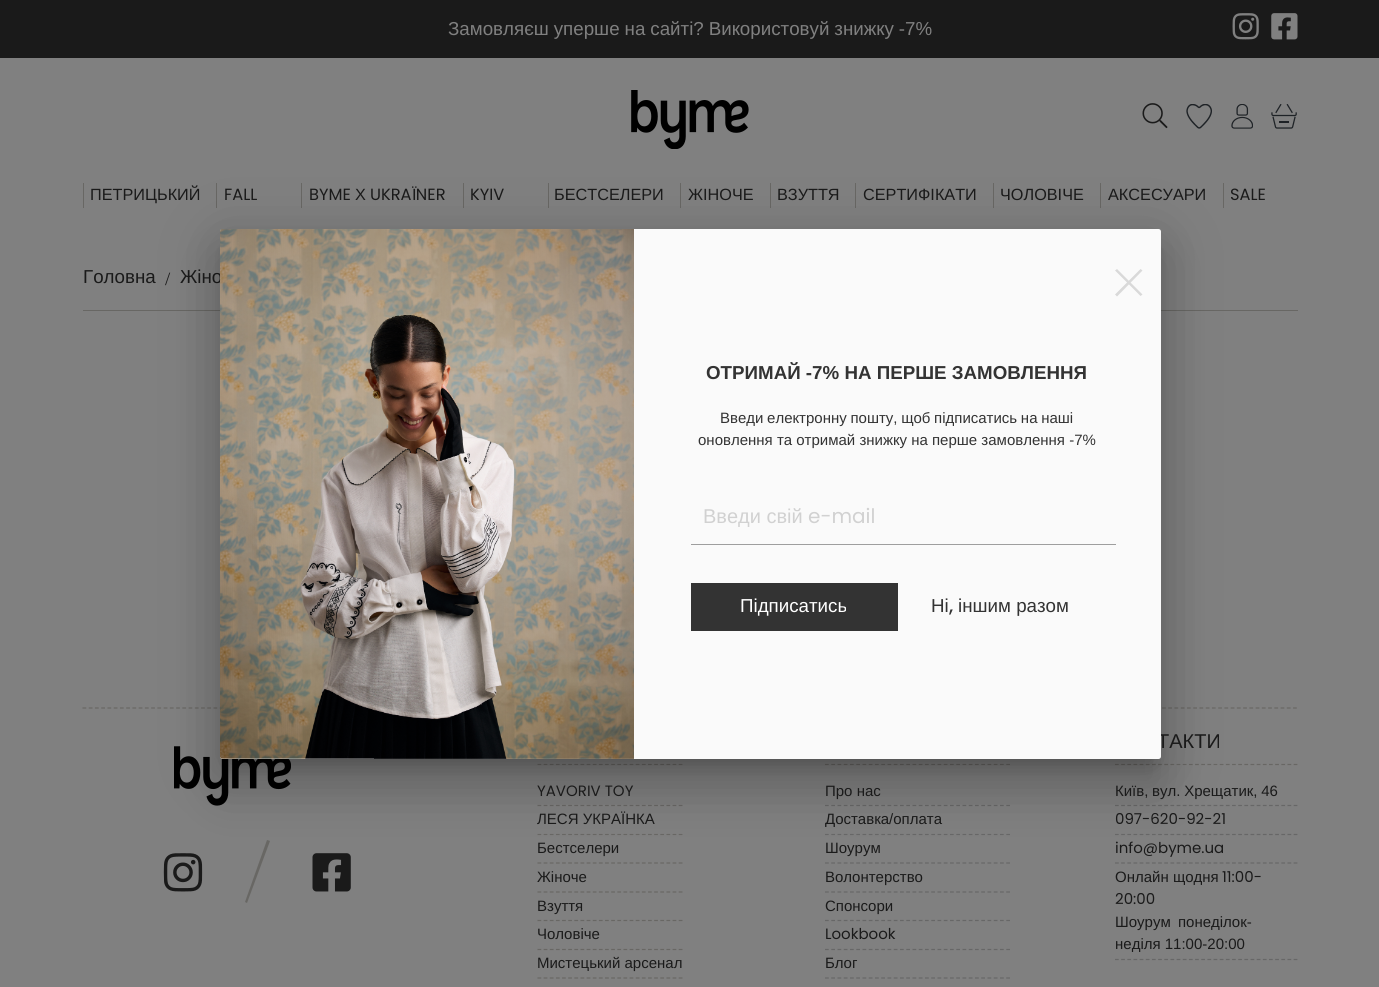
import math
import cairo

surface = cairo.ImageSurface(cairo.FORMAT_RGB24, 1379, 987)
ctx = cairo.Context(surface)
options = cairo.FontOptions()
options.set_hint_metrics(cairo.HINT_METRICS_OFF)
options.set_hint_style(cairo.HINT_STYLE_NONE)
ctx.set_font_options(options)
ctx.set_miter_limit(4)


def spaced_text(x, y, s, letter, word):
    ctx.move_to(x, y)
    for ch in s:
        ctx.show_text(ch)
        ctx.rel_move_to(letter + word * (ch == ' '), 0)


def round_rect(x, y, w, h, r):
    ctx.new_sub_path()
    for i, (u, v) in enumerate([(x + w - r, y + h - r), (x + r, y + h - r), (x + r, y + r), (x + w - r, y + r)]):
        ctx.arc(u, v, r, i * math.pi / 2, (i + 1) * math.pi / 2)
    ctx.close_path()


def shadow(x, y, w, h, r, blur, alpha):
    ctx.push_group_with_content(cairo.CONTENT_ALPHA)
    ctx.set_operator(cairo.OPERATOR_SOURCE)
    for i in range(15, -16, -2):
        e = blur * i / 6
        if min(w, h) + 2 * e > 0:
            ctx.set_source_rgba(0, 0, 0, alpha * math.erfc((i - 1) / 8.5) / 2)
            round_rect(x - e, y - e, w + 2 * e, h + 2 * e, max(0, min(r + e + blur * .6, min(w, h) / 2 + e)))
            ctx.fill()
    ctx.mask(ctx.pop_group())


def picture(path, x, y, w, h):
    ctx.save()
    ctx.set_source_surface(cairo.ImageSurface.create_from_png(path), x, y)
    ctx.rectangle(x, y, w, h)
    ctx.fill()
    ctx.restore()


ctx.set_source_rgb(0.502, 0.502, 0.502)
ctx.paint()
ctx.set_source_rgb(0.102, 0.102, 0.102)
ctx.rectangle(0, 0, 1379, 58)
ctx.fill()
ctx.select_font_face("Liberation Sans")
ctx.set_font_size(18.75)
ctx.set_source_rgb(0.502, 0.502, 0.502)
spaced_text(448, 35, "Замовляєш уперше на сайті? Використовуй знижку -7%", 0, -0.25)
picture("img1.png", 1232, 13, 27, 27)
picture("img2.png", 1271, 13, 27, 27)
picture("img3.png", 631, 90, 118, 59)
picture("img4.png", 1142, 103, 26, 26)
picture("img5.png", 1186, 104, 26, 25)
picture("img6.png", 1231, 104, 22, 25)
picture("img7.png", 1271, 104, 26, 25)
ctx.set_source_rgb(0.408, 0.404, 0.392)
ctx.rectangle(83, 183, 1, 25)
ctx.fill()
ctx.set_font_size(16.25)
ctx.set_source_rgb(0.102, 0.102, 0.102)
ctx.move_to(90, 200)
ctx.show_text("ПЕТРИЦЬКИЙ")
ctx.set_source_rgb(0.408, 0.404, 0.392)
ctx.rectangle(216, 183, 1, 25)
ctx.fill()
ctx.select_font_face("Poppins")
ctx.set_source_rgb(0.102, 0.102, 0.102)
ctx.move_to(224, 200)
ctx.show_text("FALL")
ctx.set_source_rgb(0.408, 0.404, 0.392)
ctx.rectangle(301, 183, 1, 25)
ctx.fill()
ctx.set_source_rgb(0.102, 0.102, 0.102)
ctx.move_to(309, 200)
ctx.show_text("BYME")
ctx.select_font_face("Liberation Sans")
ctx.move_to(355, 200)
ctx.show_text("Х")
ctx.select_font_face("Poppins")
ctx.move_to(370, 200)
ctx.show_text("UKRA NER")
ctx.select_font_face("Liberation Sans")
ctx.move_to(412, 200)
ctx.show_text("Ї")
ctx.set_source_rgb(0.408, 0.404, 0.392)
ctx.rectangle(463, 183, 1, 25)
ctx.fill()
ctx.select_font_face("Poppins")
ctx.set_source_rgb(0.102, 0.102, 0.102)
ctx.move_to(470, 200)
ctx.show_text("KYIV")
ctx.set_source_rgb(0.408, 0.404, 0.392)
ctx.rectangle(548, 183, 1, 25)
ctx.fill()
ctx.select_font_face("Liberation Sans")
ctx.set_source_rgb(0.102, 0.102, 0.102)
ctx.move_to(554, 200)
ctx.show_text("БЕСТСЕЛЕРИ")
ctx.set_source_rgb(0.408, 0.404, 0.392)
ctx.rectangle(680, 183, 1, 25)
ctx.fill()
ctx.set_source_rgb(0.102, 0.102, 0.102)
ctx.move_to(688, 200)
ctx.show_text("ЖІНОЧЕ")
ctx.set_source_rgb(0.408, 0.404, 0.392)
ctx.rectangle(770, 183, 1, 25)
ctx.fill()
ctx.set_source_rgb(0.102, 0.102, 0.102)
ctx.move_to(777, 200)
ctx.show_text("ВЗУТТЯ")
ctx.set_source_rgb(0.408, 0.404, 0.392)
ctx.rectangle(855, 183, 1, 25)
ctx.fill()
ctx.set_source_rgb(0.102, 0.102, 0.102)
ctx.move_to(863, 200)
ctx.show_text("СЕРТИФІКАТИ")
ctx.set_source_rgb(0.408, 0.404, 0.392)
ctx.rectangle(993, 183, 1, 25)
ctx.fill()
ctx.set_source_rgb(0.102, 0.102, 0.102)
ctx.move_to(1000, 200)
ctx.show_text("ЧОЛОВІЧЕ")
ctx.set_source_rgb(0.408, 0.404, 0.392)
ctx.rectangle(1100, 183, 1, 25)
ctx.fill()
ctx.set_source_rgb(0.102, 0.102, 0.102)
ctx.move_to(1108, 200)
ctx.show_text("АКСЕСУАРИ")
ctx.set_source_rgb(0.408, 0.404, 0.392)
ctx.rectangle(1223, 183, 1, 25)
ctx.fill()
ctx.select_font_face("Poppins")
ctx.set_source_rgb(0.102, 0.102, 0.102)
ctx.move_to(1230, 200)
ctx.show_text("SALE")
ctx.set_source_rgb(0.408, 0.404, 0.392)
ctx.rectangle(83, 310, 1215, 1)
ctx.fill()
ctx.select_font_face("Liberation Sans")
ctx.set_font_size(18.75)
ctx.set_source_rgb(0.102, 0.102, 0.102)
ctx.move_to(83, 283)
ctx.show_text("Головна")
ctx.select_font_face("Liberation Serif")
ctx.move_to(165, 285)
ctx.show_text("/")
ctx.select_font_face("Liberation Sans")
ctx.move_to(180, 283)
ctx.show_text("Жіно")
ctx.new_path()
ctx.move_to(82.5, 708)
ctx.line_to(1297.5, 708)
ctx.set_source_rgb(0.408, 0.404, 0.392)
ctx.set_line_width(1.2)
ctx.set_dash([3.75, 2.49])
ctx.stroke()
picture("img9.png", 174, 746, 117, 60)
ctx.new_path()
ctx.move_to(537.5, 764.5)
ctx.line_to(682.5, 764.5)
ctx.set_dash([3.75, 2.39])
ctx.stroke()
ctx.new_path()
ctx.move_to(825, 764.5)
ctx.line_to(1010, 764.5)
ctx.set_dash([3.75, 2.5])
ctx.stroke()
ctx.new_path()
ctx.move_to(1115, 764.5)
ctx.line_to(1297.5, 764.5)
ctx.set_dash([3.75, 2.41])
ctx.stroke()
ctx.set_source_rgb(0, 0, 0)
shadow(229, 251, 924, 513, 0, 9.5, 0.2)
picture("img10.png", 163, 853, 40, 39)
ctx.set_source_rgb(0.408, 0.404, 0.392)
ctx.new_path()
ctx.move_to(267, 840)
ctx.line_to(270, 841)
ctx.line_to(247, 903)
ctx.line_to(245, 902)
ctx.close_path()
ctx.fill()
picture("img11.png", 312, 853, 39, 39)
ctx.new_path()
ctx.move_to(537.5, 805.5)
ctx.line_to(682.5, 805.5)
ctx.set_dash([3.75, 2.39])
ctx.stroke()
ctx.new_path()
ctx.move_to(537.5, 834.5)
ctx.line_to(682.5, 834.5)
ctx.stroke()
ctx.new_path()
ctx.move_to(537.5, 863)
ctx.line_to(682.5, 863)
ctx.stroke()
ctx.new_path()
ctx.move_to(825, 805.5)
ctx.line_to(1010, 805.5)
ctx.set_source_rgb(0.404, 0.404, 0.404)
ctx.set_dash([3.75, 2.5])
ctx.stroke()
ctx.new_path()
ctx.move_to(825, 834.5)
ctx.line_to(1010, 834.5)
ctx.stroke()
ctx.new_path()
ctx.move_to(825, 863)
ctx.line_to(1010, 863)
ctx.stroke()
ctx.new_path()
ctx.move_to(1115, 805.5)
ctx.line_to(1297.5, 805.5)
ctx.set_dash([3.75, 2.41])
ctx.stroke()
ctx.new_path()
ctx.move_to(1115, 834.5)
ctx.line_to(1297.5, 834.5)
ctx.stroke()
ctx.new_path()
ctx.move_to(1115, 863)
ctx.line_to(1297.5, 863)
ctx.stroke()
ctx.set_source_rgb(0, 0, 0)
shadow(210, 230, 961, 550, 13, 29, 0.12)
shadow(216, 255, 949, 538, 6, 24, 0.14)
ctx.set_font_size(20)
ctx.set_source_rgb(0.102, 0.102, 0.102)
ctx.move_to(1157, 748)
ctx.show_text("ТАКТИ")
ctx.set_source_rgb(0.98, 0.98, 0.98)
round_rect(220, 229, 941, 530, 2.5)
ctx.fill()
ctx.set_source_rgb(0.851, 0.851, 0.851)
ctx.set_fill_rule(cairo.FILL_RULE_EVEN_ODD)
ctx.new_path()
ctx.move_to(1140.5, 296)
ctx.line_to(1115, 270.5)
ctx.line_to(1117, 269)
ctx.line_to(1142.5, 294.5)
ctx.close_path()
ctx.fill()
ctx.new_path()
ctx.move_to(1142.5, 270.5)
ctx.line_to(1117, 296.5)
ctx.line_to(1115, 294.5)
ctx.line_to(1140.5, 269)
ctx.close_path()
ctx.fill()
picture("img8.png", 220, 229, 414, 530)
ctx.select_font_face("Liberation Sans", cairo.FONT_SLANT_NORMAL, cairo.FONT_WEIGHT_BOLD)
ctx.set_font_size(18.75)
ctx.set_source_rgb(0.2, 0.2, 0.2)
ctx.move_to(706, 379)
ctx.show_text("ОТРИМАЙ -7% НА ПЕРШЕ ЗАМОВЛЕННЯ")
ctx.select_font_face("Liberation Sans")
ctx.set_font_size(15)
spaced_text(720, 423, "Введи електронну пошту, щоб підписатись на наші", 0, -0.5)
ctx.move_to(698, 445)
ctx.show_text("оновлення та отримай знижку на перше замовлення -7%")
ctx.set_source_rgb(0.62, 0.62, 0.62)
ctx.rectangle(691, 544, 425, 1)
ctx.fill()
ctx.set_font_size(20)
ctx.set_source_rgb(0.82, 0.82, 0.82)
ctx.move_to(703, 523)
ctx.show_text("Введи свій")
ctx.select_font_face("Poppins")
ctx.move_to(808, 523)
ctx.show_text("e-mail")
ctx.set_source_rgb(0.2, 0.2, 0.2)
ctx.rectangle(691, 583, 207, 48)
ctx.fill()
ctx.select_font_face("Liberation Sans")
ctx.set_font_size(18.75)
ctx.set_source_rgb(1, 1, 1)
ctx.move_to(740, 612)
ctx.show_text("Підписатись")
ctx.set_source_rgb(0.2, 0.2, 0.2)
ctx.move_to(931, 612)
ctx.show_text("Ні")
ctx.select_font_face("Poppins Medium")
ctx.move_to(949, 612)
ctx.show_text(",")
ctx.select_font_face("Liberation Sans")
ctx.move_to(958, 612)
ctx.show_text("іншим разом")
ctx.select_font_face("Poppins")
ctx.set_font_size(15)
ctx.set_source_rgb(0.102, 0.102, 0.102)
ctx.move_to(537, 796)
ctx.show_text("YAVORIV TOY")
ctx.select_font_face("Liberation Sans")
ctx.move_to(537, 824)
ctx.show_text("ЛЕСЯ УКРАЇНКА")
ctx.move_to(537, 853)
ctx.show_text("Бестселери")
ctx.new_path()
ctx.move_to(537.5, 892)
ctx.line_to(682.5, 892)
ctx.set_source_rgb(0.408, 0.404, 0.392)
ctx.set_dash([3.75, 2.39])
ctx.stroke()
ctx.set_source_rgb(0.102, 0.102, 0.102)
ctx.move_to(537, 882)
ctx.show_text("Жіноче")
ctx.new_path()
ctx.move_to(537.5, 920.5)
ctx.line_to(682.5, 920.5)
ctx.set_source_rgb(0.408, 0.404, 0.392)
ctx.stroke()
ctx.set_source_rgb(0.102, 0.102, 0.102)
ctx.move_to(537, 911)
ctx.show_text("Взуття")
ctx.new_path()
ctx.move_to(537.5, 949.5)
ctx.line_to(682.5, 949.5)
ctx.set_source_rgb(0.408, 0.404, 0.392)
ctx.stroke()
ctx.set_source_rgb(0.102, 0.102, 0.102)
ctx.move_to(537, 939)
ctx.show_text("Чоловіче")
ctx.new_path()
ctx.move_to(537.5, 978)
ctx.line_to(682.5, 978)
ctx.set_source_rgb(0.408, 0.404, 0.392)
ctx.stroke()
ctx.set_source_rgb(0.102, 0.102, 0.102)
ctx.move_to(537, 968)
ctx.show_text("Мистецький арсенал")
ctx.move_to(825, 796)
ctx.show_text("Про нас")
ctx.move_to(825, 824)
ctx.show_text("Доставка/оплата")
ctx.move_to(825, 853)
ctx.show_text("Шоурум")
ctx.new_path()
ctx.move_to(825, 892)
ctx.line_to(1010, 892)
ctx.set_source_rgb(0.404, 0.404, 0.404)
ctx.set_dash([3.75, 2.5])
ctx.stroke()
ctx.set_source_rgb(0.102, 0.102, 0.102)
ctx.move_to(825, 882)
ctx.show_text("Волонтерство")
ctx.new_path()
ctx.move_to(825, 920.5)
ctx.line_to(1010, 920.5)
ctx.set_source_rgb(0.404, 0.404, 0.404)
ctx.stroke()
ctx.set_source_rgb(0.102, 0.102, 0.102)
ctx.move_to(825, 911)
ctx.show_text("Спонсори")
ctx.new_path()
ctx.move_to(825, 949.5)
ctx.line_to(1010, 949.5)
ctx.set_source_rgb(0.404, 0.404, 0.404)
ctx.stroke()
ctx.select_font_face("Poppins")
ctx.set_source_rgb(0.102, 0.102, 0.102)
ctx.move_to(825, 939)
ctx.show_text("Lookbook")
ctx.new_path()
ctx.move_to(825, 978)
ctx.line_to(1010, 978)
ctx.set_source_rgb(0.404, 0.404, 0.404)
ctx.stroke()
ctx.select_font_face("Liberation Sans")
ctx.set_source_rgb(0.102, 0.102, 0.102)
ctx.move_to(825, 968)
ctx.show_text("Блог")
spaced_text(1115, 796, "Київ, вул. Хрещатик, 46", 0, -0.5)
ctx.select_font_face("Poppins")
ctx.move_to(1115, 824)
ctx.show_text("097-620-92-21")
ctx.move_to(1115, 853)
ctx.show_text("info@byme.ua")
ctx.new_path()
ctx.move_to(1115, 959.5)
ctx.line_to(1297.5, 959.5)
ctx.set_source_rgb(0.404, 0.404, 0.404)
ctx.set_dash([3.75, 2.41])
ctx.stroke()
ctx.select_font_face("Liberation Sans")
ctx.set_source_rgb(0.102, 0.102, 0.102)
ctx.move_to(1115, 882)
ctx.show_text("Онлайн щодня")
ctx.select_font_face("Poppins")
ctx.move_to(1222, 882)
ctx.show_text("11:00-")
ctx.move_to(1115, 904)
ctx.show_text("20:00")
ctx.select_font_face("Liberation Sans")
spaced_text(1115, 927, "Шоурум понеділок-", 0, 3)
ctx.move_to(1115, 949)
ctx.show_text("неділя 11:00-20:00")
surface.write_to_png("page.png")
